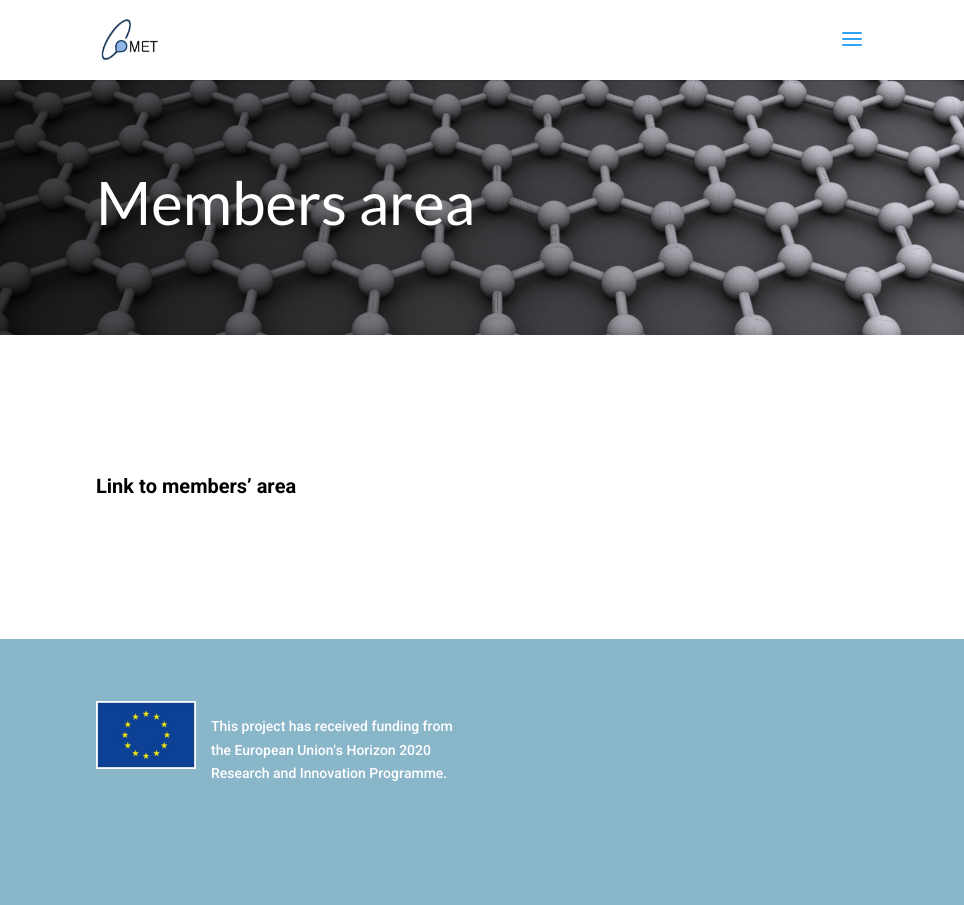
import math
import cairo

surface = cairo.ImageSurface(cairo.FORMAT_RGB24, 964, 905)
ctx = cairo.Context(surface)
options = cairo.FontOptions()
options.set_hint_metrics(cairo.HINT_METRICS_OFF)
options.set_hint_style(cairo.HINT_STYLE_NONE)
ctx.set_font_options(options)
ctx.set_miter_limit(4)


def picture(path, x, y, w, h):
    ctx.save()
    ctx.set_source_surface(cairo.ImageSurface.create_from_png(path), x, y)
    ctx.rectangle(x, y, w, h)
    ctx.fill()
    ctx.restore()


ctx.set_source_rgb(1, 1, 1)
ctx.paint()
picture("img3.png", 0, 80, 964, 255)
ctx.set_source_rgba(0, 0, 0, 0.1)
ctx.rectangle(0, 80, 964, 1)
ctx.fill()
picture("img1.png", 101, 19, 57, 42)
picture("img2.png", 842, 32, 20, 14)
ctx.select_font_face("Lato")
ctx.set_font_size(60)
ctx.set_source_rgb(1, 1, 1)
ctx.move_to(96, 225)
ctx.show_text("Members area")
ctx.select_font_face("Roboto", cairo.FONT_SLANT_NORMAL, cairo.FONT_WEIGHT_BOLD)
ctx.set_font_size(20)
ctx.set_source_rgb(0, 0, 0)
ctx.move_to(96, 493)
ctx.show_text("Link to members’ area")
ctx.set_source_rgb(0.537, 0.714, 0.788)
ctx.rectangle(0, 639, 964, 266)
ctx.fill()
picture("img4.png", 96, 701, 100, 68)
ctx.select_font_face("Roboto Medium")
ctx.set_font_size(14)
ctx.set_source_rgb(1, 1, 1)
ctx.move_to(211, 731)
ctx.show_text("This project has received funding from")
ctx.move_to(211, 755)
ctx.show_text("the European Union's Horizon 2020")
ctx.move_to(211, 778)
ctx.show_text("Research and Innovation Programme.")
surface.write_to_png("page.png")
